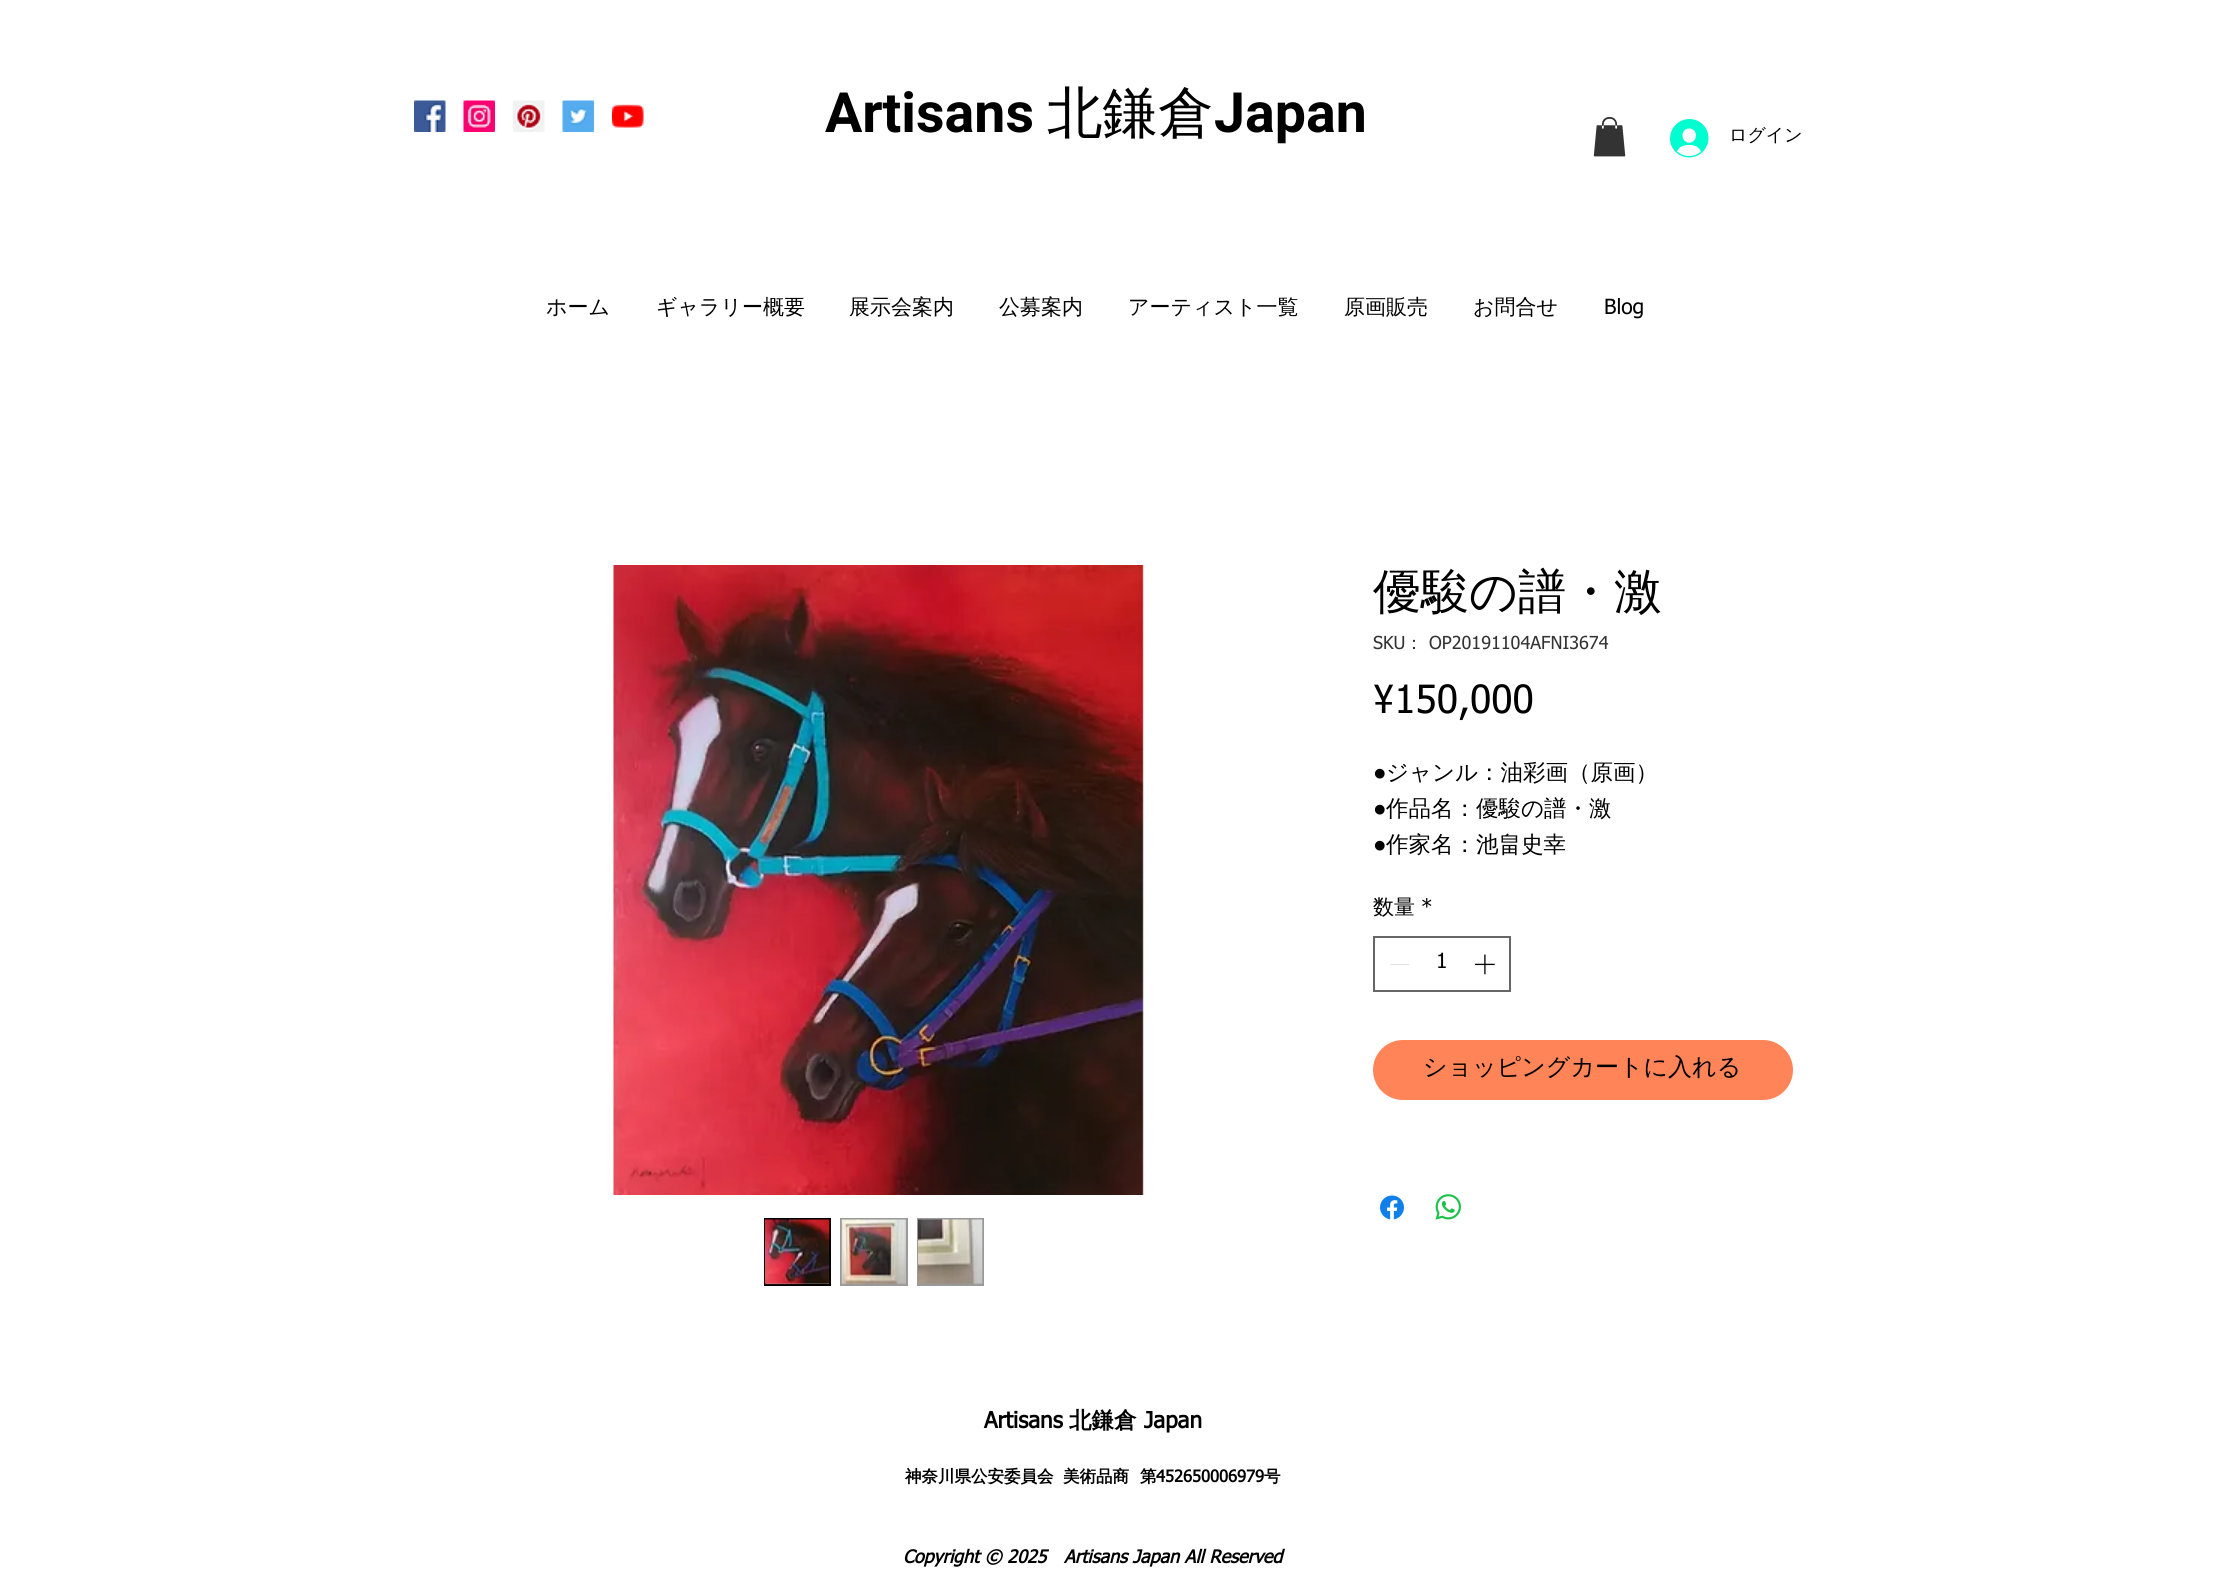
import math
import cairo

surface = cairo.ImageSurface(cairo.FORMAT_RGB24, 2235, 1575)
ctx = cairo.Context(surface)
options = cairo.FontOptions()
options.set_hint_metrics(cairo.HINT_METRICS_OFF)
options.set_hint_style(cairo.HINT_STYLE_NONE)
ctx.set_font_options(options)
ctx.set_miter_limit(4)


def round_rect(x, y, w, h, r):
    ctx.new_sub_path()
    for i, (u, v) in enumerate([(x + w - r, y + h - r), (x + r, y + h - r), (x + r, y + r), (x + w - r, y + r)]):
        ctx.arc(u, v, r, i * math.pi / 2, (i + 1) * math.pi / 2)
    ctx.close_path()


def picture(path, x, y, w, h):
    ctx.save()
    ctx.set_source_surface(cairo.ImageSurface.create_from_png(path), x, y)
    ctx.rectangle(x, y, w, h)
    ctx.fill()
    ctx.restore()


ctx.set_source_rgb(1, 1, 1)
ctx.paint()
picture("img1.png", 414, 100, 32, 32)
picture("img2.png", 463, 100, 32, 32)
picture("img3.png", 513, 100, 32, 32)
picture("img4.png", 562, 100, 32, 32)
picture("img5.png", 612, 104, 32, 24)
ctx.select_font_face("Roboto", cairo.FONT_SLANT_NORMAL, cairo.FONT_WEIGHT_BOLD)
ctx.set_font_size(55.5)
ctx.set_source_rgb(0, 0, 0)
ctx.move_to(825, 132)
ctx.show_text("Artisans")
ctx.select_font_face("WenQuanYi Zen Hei Medium")
ctx.move_to(1047, 132)
ctx.show_text("北鎌倉")
ctx.select_font_face("Roboto", cairo.FONT_SLANT_NORMAL, cairo.FONT_WEIGHT_BOLD)
ctx.move_to(1214, 132)
ctx.show_text("Japan")
picture("img6.png", 1593, 117, 33, 40)
picture("img7.png", 1670, 119, 39, 39)
ctx.select_font_face("WenQuanYi Zen Hei Medium")
ctx.set_font_size(18)
ctx.move_to(1729, 141)
ctx.show_text("ログイン")
ctx.set_font_size(21)
ctx.move_to(546, 314)
ctx.show_text("ホーム")
ctx.move_to(656, 314)
ctx.show_text("ギャラリー概要")
ctx.move_to(849, 314)
ctx.show_text("展示会案内")
ctx.move_to(999, 314)
ctx.show_text("公募案内")
ctx.move_to(1128, 314)
ctx.show_text("アーティスト一覧")
ctx.move_to(1344, 314)
ctx.show_text("原画販売")
ctx.move_to(1473, 314)
ctx.show_text("お問合せ")
ctx.select_font_face("tahoma")
ctx.move_to(1604, 314)
ctx.show_text("Blog")
picture("img8.png", 613, 565, 531, 630)
ctx.set_source_rgb(0.6, 0.6, 0.6)
ctx.rectangle(766, 1283, 63, 1)
ctx.fill()
ctx.rectangle(765, 1219, 65, 66)
ctx.set_source_rgb(0, 0, 0)
ctx.stroke()
picture("img9.png", 765, 1219, 65, 66)
ctx.set_source_rgb(0.6, 0.6, 0.6)
ctx.rectangle(840, 1218, 68, 68)
ctx.fill()
picture("img10.png", 841, 1219, 65, 66)
ctx.rectangle(917, 1218, 67, 68)
ctx.fill()
picture("img11.png", 918, 1219, 65, 66)
ctx.select_font_face("WenQuanYi Zen Hei Medium")
ctx.set_font_size(48)
ctx.set_source_rgb(0, 0, 0)
ctx.move_to(1373, 608)
ctx.show_text("優駿の譜・激")
ctx.select_font_face("tahoma")
ctx.set_font_size(18)
ctx.set_source_rgb(0.2, 0.2, 0.2)
ctx.move_to(1373, 649)
ctx.show_text("SKU")
ctx.select_font_face("WenQuanYi Zen Hei Medium")
ctx.move_to(1405, 649)
ctx.show_text("：")
ctx.select_font_face("tahoma")
ctx.move_to(1429, 649)
ctx.show_text("OP20191104AFNI3674")
ctx.set_font_size(39)
ctx.set_source_rgb(0, 0, 0)
ctx.move_to(1373, 713)
ctx.show_text("¥150,000")
ctx.select_font_face("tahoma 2")
ctx.set_font_size(22.5)
ctx.move_to(1373, 780)
ctx.show_text("●")
ctx.select_font_face("WenQuanYi Zen Hei Medium")
ctx.move_to(1386, 780)
ctx.show_text("ジャンル：油彩画（原画）")
ctx.select_font_face("tahoma 2")
ctx.move_to(1373, 816)
ctx.show_text("●")
ctx.select_font_face("WenQuanYi Zen Hei Medium")
ctx.move_to(1386, 816)
ctx.show_text("作品名：優駿の譜・激")
ctx.select_font_face("tahoma 2")
ctx.move_to(1373, 852)
ctx.show_text("●")
ctx.select_font_face("WenQuanYi Zen Hei Medium")
ctx.move_to(1386, 852)
ctx.show_text("作家名：池畠史幸")
ctx.set_font_size(21)
ctx.move_to(1373, 914)
ctx.show_text("数量")
ctx.select_font_face("tahoma")
ctx.move_to(1421, 914)
ctx.show_text("*")
ctx.rectangle(1374, 937, 136, 54)
ctx.set_source_rgb(0.4, 0.4, 0.4)
ctx.stroke()
ctx.set_source_rgb(0.89, 0.89, 0.89)
ctx.rectangle(1390, 964, 19, 1)
ctx.fill()
ctx.set_source_rgb(0, 0, 0)
ctx.move_to(1436, 968)
ctx.show_text("1")
picture("img12.png", 1475, 954, 20, 21)
ctx.set_source_rgb(1, 0.522, 0.349)
round_rect(1373, 1040, 420, 60, 30)
ctx.fill()
ctx.select_font_face("WenQuanYi Zen Hei Medium")
ctx.set_font_size(24)
ctx.set_source_rgb(0, 0, 0)
ctx.move_to(1423, 1075)
ctx.show_text("ショッピングカートに入れる")
picture("img13.png", 1380, 1195, 24, 25)
picture("img14.png", 1435, 1194, 26, 26)
ctx.select_font_face("tahoma", cairo.FONT_SLANT_NORMAL, cairo.FONT_WEIGHT_BOLD)
ctx.set_font_size(22.5)
ctx.move_to(984, 1428)
ctx.show_text("Artisans")
ctx.select_font_face("WenQuanYi Zen Hei", cairo.FONT_SLANT_NORMAL, cairo.FONT_WEIGHT_BOLD)
ctx.move_to(1069, 1428)
ctx.show_text("北鎌倉")
ctx.select_font_face("tahoma", cairo.FONT_SLANT_NORMAL, cairo.FONT_WEIGHT_BOLD)
ctx.move_to(1144, 1428)
ctx.show_text("Japan")
ctx.select_font_face("WenQuanYi Zen Hei", cairo.FONT_SLANT_NORMAL, cairo.FONT_WEIGHT_BOLD)
ctx.set_font_size(16.5)
ctx.move_to(905, 1482)
ctx.show_text("神奈川県公安委員会")
ctx.move_to(1063, 1482)
ctx.show_text("美術品商")
ctx.move_to(1140, 1482)
ctx.show_text("第")
ctx.select_font_face("tahoma", cairo.FONT_SLANT_NORMAL, cairo.FONT_WEIGHT_BOLD)
ctx.move_to(1156, 1482)
ctx.show_text("452650006979")
ctx.select_font_face("WenQuanYi Zen Hei", cairo.FONT_SLANT_NORMAL, cairo.FONT_WEIGHT_BOLD)
ctx.move_to(1264, 1482)
ctx.show_text("号")
ctx.select_font_face("tahoma", cairo.FONT_SLANT_ITALIC, cairo.FONT_WEIGHT_BOLD)
ctx.set_font_size(18)
ctx.move_to(903, 1563)
ctx.show_text("Copyright © 2025")
ctx.move_to(1064, 1563)
ctx.show_text("Artisans Japan All Reserved")
surface.write_to_png("page.png")
